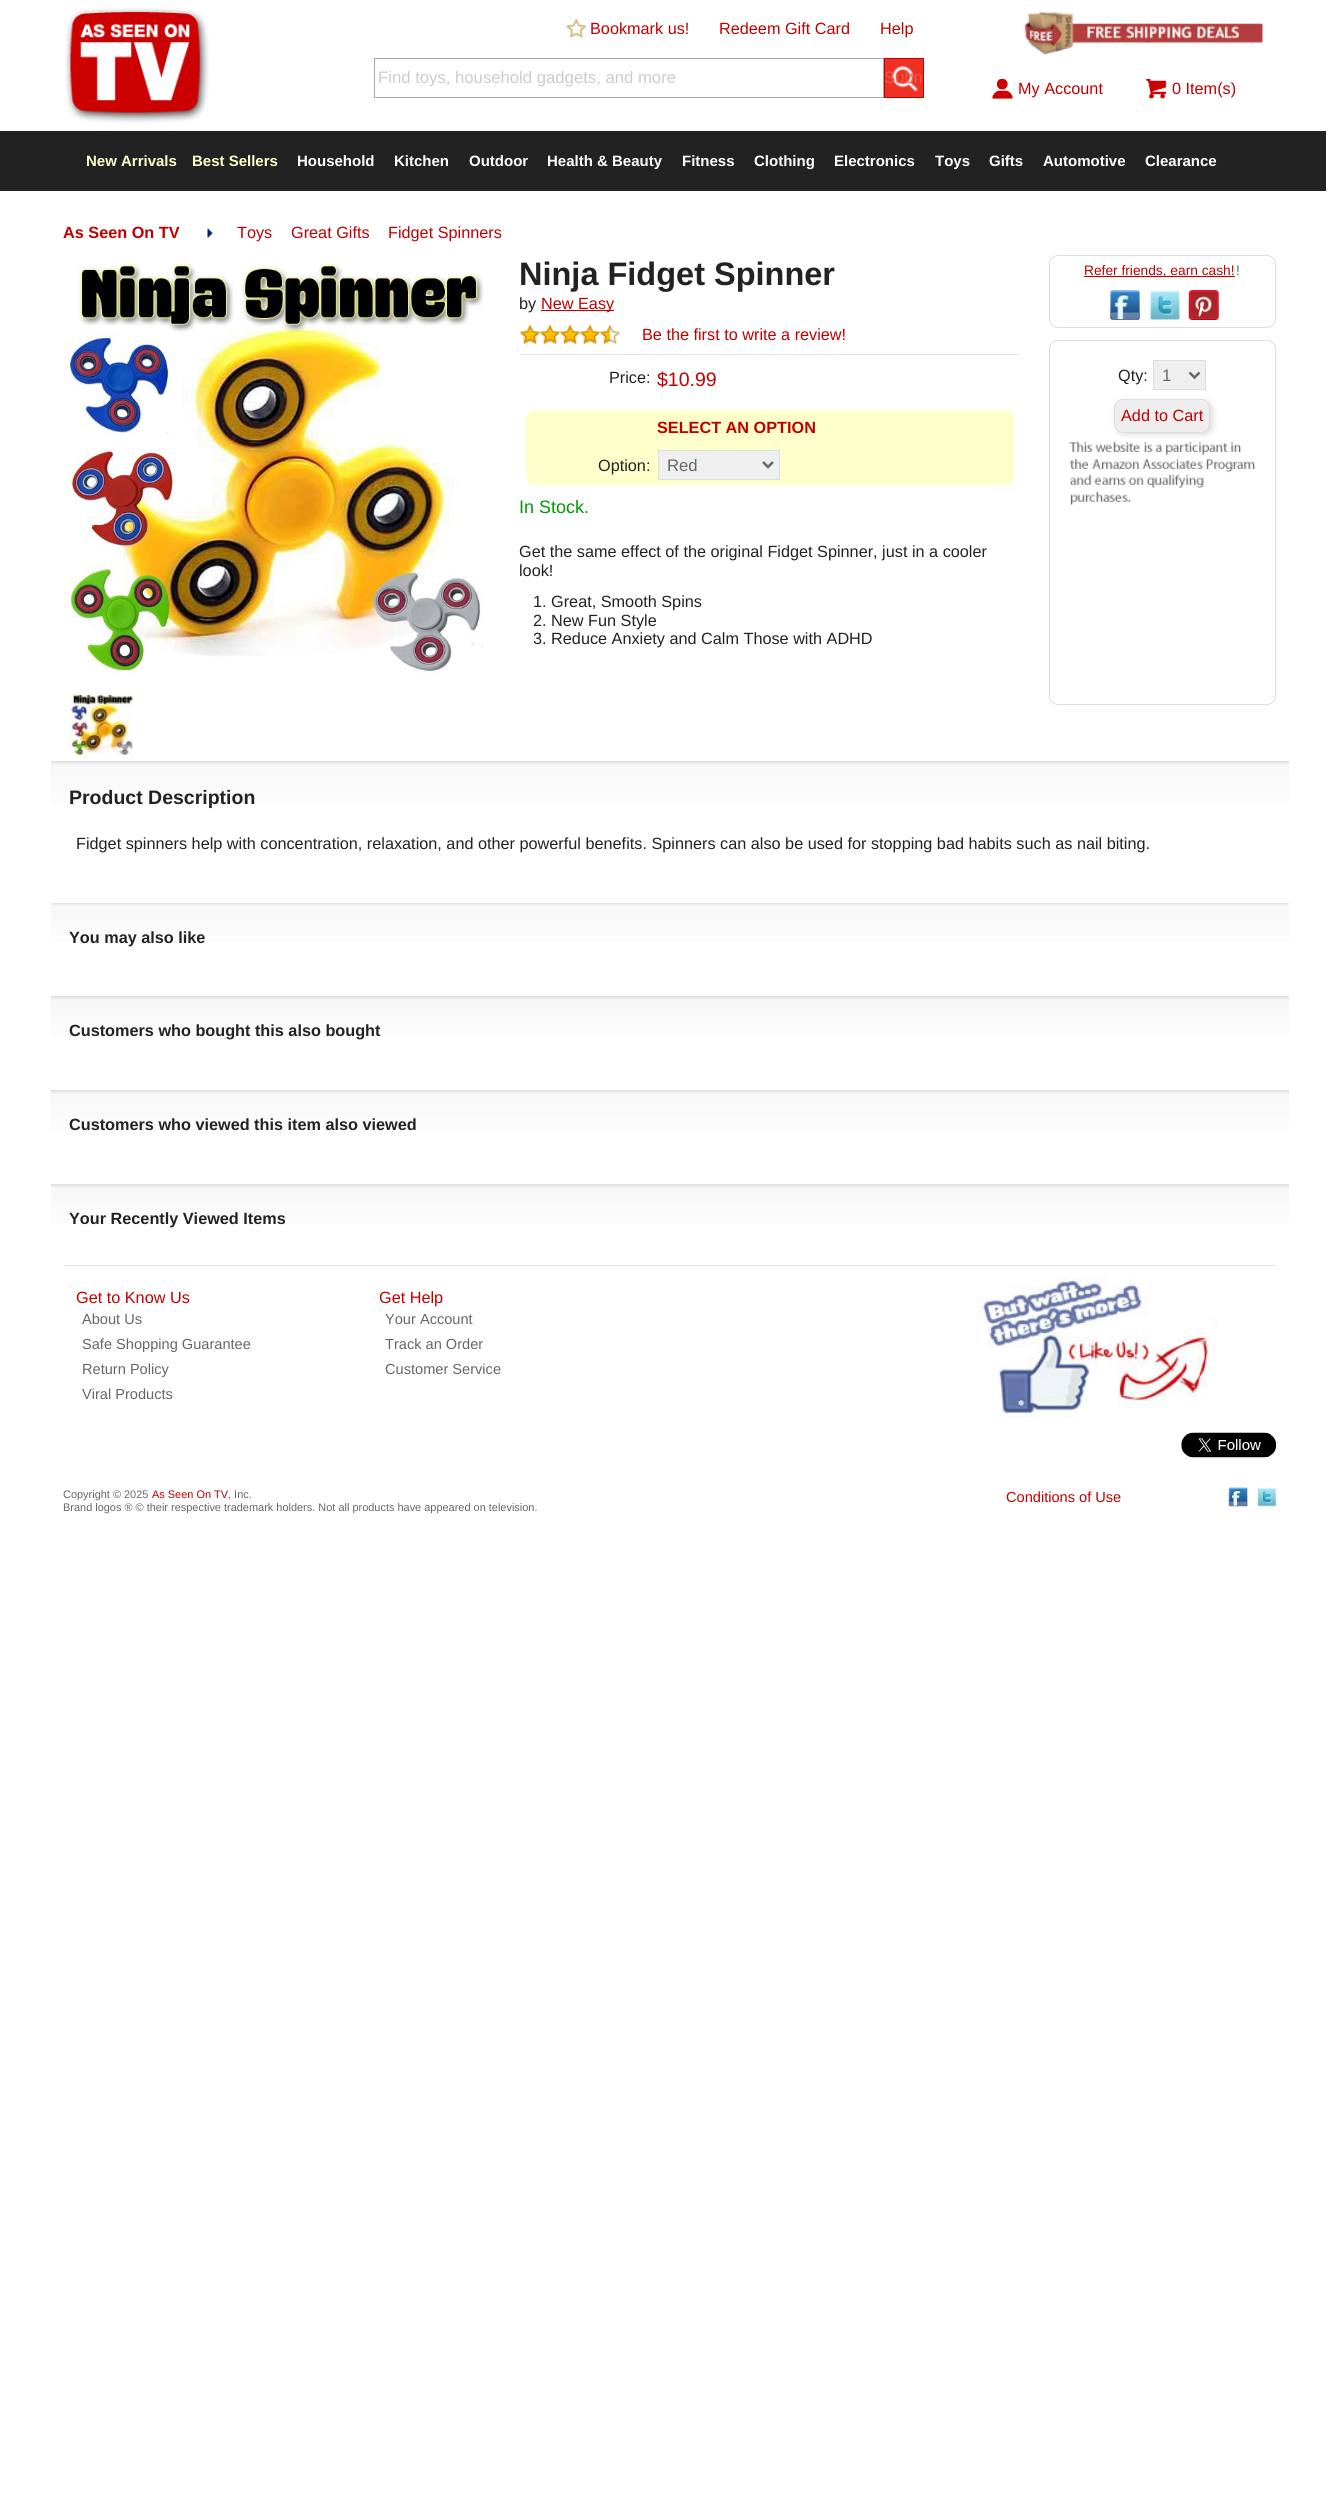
import math
import cairo

surface = cairo.ImageSurface(cairo.FORMAT_RGB24, 1338, 2511)
ctx = cairo.Context(surface)
options = cairo.FontOptions()
options.set_hint_metrics(cairo.HINT_METRICS_OFF)
options.set_hint_style(cairo.HINT_STYLE_NONE)
ctx.set_font_options(options)
ctx.set_miter_limit(4)


def round_rect(x, y, w, h, r):
    ctx.new_sub_path()
    for i, (u, v) in enumerate([(x + w - r, y + h - r), (x + r, y + h - r), (x + r, y + r), (x + w - r, y + r)]):
        ctx.arc(u, v, r, i * math.pi / 2, (i + 1) * math.pi / 2)
    ctx.close_path()


def shadow(x, y, w, h, r, blur, alpha):
    ctx.push_group_with_content(cairo.CONTENT_ALPHA)
    ctx.set_operator(cairo.OPERATOR_SOURCE)
    for i in range(15, -16, -2):
        e = blur * i / 6
        if min(w, h) + 2 * e > 0:
            ctx.set_source_rgba(0, 0, 0, alpha * math.erfc((i - 1) / 8.5) / 2)
            round_rect(x - e, y - e, w + 2 * e, h + 2 * e, max(0, min(r + e + blur * .6, min(w, h) / 2 + e)))
            ctx.fill()
    ctx.mask(ctx.pop_group())


def picture(path, x, y, w, h):
    ctx.save()
    ctx.set_source_surface(cairo.ImageSurface.create_from_png(path), x, y)
    ctx.rectangle(x, y, w, h)
    ctx.fill()
    ctx.restore()


ctx.set_source_rgb(1, 1, 1)
ctx.paint()
picture("img1.png", 65, 8, 144, 115)
picture("img2.png", 566, 18, 21, 20)
ctx.select_font_face("Liberation Sans")
ctx.set_font_size(16.25)
ctx.set_source_rgb(0.753, 0, 0)
ctx.move_to(590, 34)
ctx.show_text("Bookmark us!")
ctx.move_to(719, 34)
ctx.show_text("Redeem Gift Card")
ctx.move_to(880, 34)
ctx.show_text("Help")
ctx.rectangle(374.5, 58.5, 509, 39)
ctx.set_source_rgb(0.667, 0.667, 0.667)
ctx.set_line_width(1)
ctx.stroke()
ctx.set_font_size(16.7)
ctx.set_source_rgb(0.8, 0.8, 0.8)
ctx.move_to(378, 83)
ctx.show_text("Find toys, household gadgets, and more")
picture("img3.png", 885, 59, 38, 38)
ctx.rectangle(884.5, 58.5, 39, 39)
ctx.set_source_rgb(0.753, 0, 0)
ctx.stroke()
ctx.save()
ctx.rectangle(885, 59, 38, 37)
ctx.clip()
ctx.set_source_rgb(0.949, 0.333, 0.29)
ctx.move_to(884, 83)
ctx.show_text("Subm")
ctx.restore()
picture("img4.png", 1024, 12, 239, 44)
picture("img5.png", 992, 78, 21, 21)
ctx.set_font_size(16.25)
ctx.move_to(1018, 94)
ctx.show_text("My Account")
picture("img6.png", 1146, 78, 21, 21)
ctx.move_to(1172, 94)
ctx.show_text("0 Item(s)")
ctx.set_source_rgb(0.133, 0.133, 0.133)
ctx.rectangle(0, 131, 1326, 60)
ctx.fill()
ctx.select_font_face("Liberation Sans", cairo.FONT_SLANT_NORMAL, cairo.FONT_WEIGHT_BOLD)
ctx.set_font_size(15)
ctx.set_source_rgb(1, 1, 0.8)
ctx.move_to(86, 166)
ctx.show_text("New Arrivals")
ctx.move_to(192, 166)
ctx.show_text("Best Sellers")
ctx.set_source_rgb(1, 1, 1)
ctx.move_to(297, 166)
ctx.show_text("Household")
ctx.move_to(394, 166)
ctx.show_text("Kitchen")
ctx.move_to(469, 166)
ctx.show_text("Outdoor")
ctx.move_to(547, 166)
ctx.show_text("Health & Beauty")
ctx.move_to(682, 166)
ctx.show_text("Fitness")
ctx.move_to(754, 166)
ctx.show_text("Clothing")
ctx.move_to(834, 166)
ctx.show_text("Electronics")
ctx.move_to(935, 166)
ctx.show_text("Toys")
ctx.move_to(989, 166)
ctx.show_text("Gifts")
ctx.move_to(1043, 166)
ctx.show_text("Automotive")
ctx.move_to(1145, 166)
ctx.show_text("Clearance")
ctx.set_font_size(16.25)
ctx.set_source_rgb(0.753, 0, 0)
ctx.move_to(63, 238)
ctx.show_text("As Seen On TV")
picture("img7.png", 207, 228, 6, 10)
ctx.select_font_face("Liberation Sans")
ctx.move_to(237, 238)
ctx.show_text("Toys")
ctx.move_to(291, 238)
ctx.show_text("Great Gifts")
ctx.move_to(388, 238)
ctx.show_text("Fidget Spinners")
picture("img8.png", 64, 255, 420, 420)
picture("img9.png", 70, 692, 63, 63)
ctx.select_font_face("Liberation Sans", cairo.FONT_SLANT_NORMAL, cairo.FONT_WEIGHT_BOLD)
ctx.set_font_size(32.5)
ctx.set_source_rgb(0.133, 0.133, 0.133)
ctx.move_to(519, 285)
ctx.show_text("Ninja Fidget Spinner")
ctx.select_font_face("Liberation Sans")
ctx.set_font_size(16.25)
ctx.move_to(519, 309)
ctx.show_text("by")
ctx.set_source_rgb(0.753, 0, 0)
ctx.rectangle(541, 310, 73, 1)
ctx.fill()
ctx.move_to(541, 309)
ctx.show_text("New Easy")
picture("img10.png", 520, 325, 100, 19)
ctx.move_to(642, 340)
ctx.show_text("Be the first to write a review!")
ctx.set_source_rgb(0.902, 0.902, 0.902)
ctx.rectangle(520, 354, 500, 1)
ctx.fill()
ctx.set_source_rgb(0.133, 0.133, 0.133)
ctx.move_to(609, 383)
ctx.show_text("Price:")
ctx.set_font_size(19.5)
ctx.set_source_rgb(0.753, 0, 0)
ctx.move_to(657, 386)
ctx.show_text("$10.99")
ctx.set_source_rgb(1, 1, 0.8)
round_rect(526, 410, 488, 75, 9)
ctx.fill()
ctx.select_font_face("Liberation Sans", cairo.FONT_SLANT_NORMAL, cairo.FONT_WEIGHT_BOLD)
ctx.set_font_size(16.25)
ctx.set_source_rgb(0.753, 0, 0)
ctx.move_to(657, 433)
ctx.show_text("SELECT AN OPTION")
ctx.select_font_face("Liberation Sans")
ctx.set_source_rgb(0.133, 0.133, 0.133)
ctx.move_to(598, 471)
ctx.show_text("Option:")
ctx.set_source_rgb(0.937, 0.937, 0.937)
ctx.rectangle(658.5, 450.5, 121, 29)
ctx.fill_preserve()
ctx.set_source_rgb(0.867, 0.867, 0.867)
ctx.stroke()
ctx.new_path()
ctx.move_to(763, 462)
ctx.line_to(768, 467)
ctx.line_to(773, 462)
ctx.set_source_rgb(0.4, 0.4, 0.4)
ctx.set_line_width(2.5)
ctx.stroke()
ctx.set_font_size(16.7)
ctx.move_to(667, 471)
ctx.show_text("Red")
ctx.set_font_size(18)
ctx.set_source_rgb(0, 0.6, 0)
ctx.move_to(519, 513)
ctx.show_text("In Stock.")
ctx.set_font_size(16.25)
ctx.set_source_rgb(0.133, 0.133, 0.133)
ctx.move_to(519, 557)
ctx.show_text("Get the same effect of the original Fidget Spinner, just in a cooler")
ctx.move_to(519, 576)
ctx.show_text("look!")
ctx.move_to(533, 607)
ctx.show_text("1. Great, Smooth Spins")
ctx.move_to(533, 626)
ctx.show_text("2. New Fun Style")
ctx.move_to(533, 644)
ctx.show_text("3. Reduce Anxiety and Calm Those with ADHD")
round_rect(1049.5, 255.5, 226, 72, 8.5)
ctx.set_source_rgb(0.867, 0.867, 0.867)
ctx.set_line_width(1)
ctx.stroke()
ctx.set_source_rgb(0.753, 0, 0)
ctx.rectangle(1084, 276, 151, 1)
ctx.fill()
ctx.set_font_size(13.75)
ctx.move_to(1084, 275)
ctx.show_text("Refer friends, earn cash!")
ctx.set_source_rgb(0.4, 0.4, 0.4)
ctx.move_to(1236, 275)
ctx.show_text("!")
picture("img11.png", 1110, 290, 30, 30)
picture("img12.png", 1150, 290, 30, 30)
picture("img13.png", 1188, 290, 31, 30)
round_rect(1049.5, 340.5, 226, 364, 8.5)
ctx.set_source_rgb(0.867, 0.867, 0.867)
ctx.stroke()
ctx.set_font_size(16.25)
ctx.set_source_rgb(0.133, 0.133, 0.133)
ctx.move_to(1118, 381)
ctx.show_text("Qty:")
ctx.set_source_rgb(0.937, 0.937, 0.937)
ctx.rectangle(1153.5, 360.5, 52, 29)
ctx.fill_preserve()
ctx.set_source_rgb(0.867, 0.867, 0.867)
ctx.stroke()
ctx.new_path()
ctx.move_to(1189.5, 372.5)
ctx.line_to(1194.5, 377.5)
ctx.line_to(1199.5, 372.5)
ctx.set_source_rgb(0.4, 0.4, 0.4)
ctx.set_line_width(2.5)
ctx.stroke()
ctx.set_font_size(16.7)
ctx.move_to(1162, 381)
ctx.show_text("1")
ctx.set_source_rgb(0.867, 0.867, 0.867)
shadow(1116, 401, 97, 34, 9, 3, 1)
ctx.set_source_rgb(0.933, 0.933, 0.933)
round_rect(1114.5, 399.5, 95, 33, 8.5)
ctx.fill_preserve()
ctx.set_source_rgb(0.867, 0.867, 0.867)
ctx.set_line_width(1)
ctx.stroke()
ctx.set_font_size(16.25)
ctx.set_source_rgb(0.753, 0, 0)
ctx.move_to(1121, 421)
ctx.show_text("Add to Cart")
picture("img14.png", 1068, 441, 187, 64)
gradient = cairo.LinearGradient(670, 761, 670, 821)
gradient.add_color_stop_rgba(0, 0.859, 0.859, 0.859, 1)
gradient.add_color_stop_rgba(0.06, 0.969, 0.969, 0.969, 1)
gradient.add_color_stop_rgba(1, 1, 1, 1, 1)
ctx.set_source(gradient)
ctx.rectangle(51, 761, 1238, 42)
ctx.fill()
ctx.select_font_face("Liberation Sans", cairo.FONT_SLANT_NORMAL, cairo.FONT_WEIGHT_BOLD)
ctx.set_font_size(19.5)
ctx.set_source_rgb(0.133, 0.133, 0.133)
ctx.move_to(69, 804)
ctx.show_text("Product Description")
ctx.select_font_face("Liberation Sans")
ctx.set_font_size(16.25)
ctx.move_to(76, 849)
ctx.show_text("Fidget spinners help with concentration, relaxation, and other powerful benefits. Spinners can also be used for stopping bad habits such as nail biting.")
gradient = cairo.LinearGradient(670, 902, 670, 959)
gradient.add_color_stop_rgba(0, 0.859, 0.859, 0.859, 1)
gradient.add_color_stop_rgba(0.07, 0.969, 0.969, 0.969, 1)
gradient.add_color_stop_rgba(1, 1, 1, 1, 1)
ctx.set_source(gradient)
ctx.rectangle(51, 903, 1238, 39)
ctx.fill()
ctx.select_font_face("Liberation Sans", cairo.FONT_SLANT_NORMAL, cairo.FONT_WEIGHT_BOLD)
ctx.set_source_rgb(0.133, 0.133, 0.133)
ctx.move_to(69, 943)
ctx.show_text("You may also like")
gradient = cairo.LinearGradient(670, 996, 670, 1053)
gradient.add_color_stop_rgba(0, 0.859, 0.859, 0.859, 1)
gradient.add_color_stop_rgba(0.07, 0.969, 0.969, 0.969, 1)
gradient.add_color_stop_rgba(1, 1, 1, 1, 1)
ctx.set_source(gradient)
ctx.rectangle(51, 996, 1238, 40)
ctx.fill()
ctx.set_source_rgb(0.133, 0.133, 0.133)
ctx.move_to(69, 1036)
ctx.show_text("Customers who bought this also bought")
gradient = cairo.LinearGradient(670, 1090, 670, 1146)
gradient.add_color_stop_rgba(0, 0.859, 0.859, 0.859, 1)
gradient.add_color_stop_rgba(0.07, 0.969, 0.969, 0.969, 1)
gradient.add_color_stop_rgba(1, 1, 1, 1, 1)
ctx.set_source(gradient)
ctx.rectangle(51, 1090, 1238, 40)
ctx.fill()
ctx.set_source_rgb(0.133, 0.133, 0.133)
ctx.move_to(69, 1130)
ctx.show_text("Customers who viewed this item also viewed")
gradient = cairo.LinearGradient(670, 1184, 670, 1240)
gradient.add_color_stop_rgba(0, 0.859, 0.859, 0.859, 1)
gradient.add_color_stop_rgba(0.07, 0.969, 0.969, 0.969, 1)
gradient.add_color_stop_rgba(1, 1, 1, 1, 1)
ctx.set_source(gradient)
ctx.rectangle(51, 1184, 1238, 40)
ctx.fill()
ctx.set_source_rgb(0.133, 0.133, 0.133)
ctx.move_to(69, 1224)
ctx.show_text("Your Recently Viewed Items")
ctx.set_source_rgb(0.902, 0.902, 0.902)
ctx.rectangle(64, 1265, 1212, 1)
ctx.fill()
ctx.select_font_face("Liberation Sans")
ctx.set_source_rgb(0.753, 0, 0)
ctx.move_to(76, 1303)
ctx.show_text("Get to Know Us")
ctx.set_font_size(14.6)
ctx.set_source_rgb(0.4, 0.4, 0.4)
ctx.move_to(82, 1324)
ctx.show_text("About Us")
ctx.move_to(82, 1349)
ctx.show_text("Safe Shopping Guarantee")
ctx.move_to(82, 1374)
ctx.show_text("Return Policy")
ctx.move_to(82, 1399)
ctx.show_text("Viral Products")
ctx.set_font_size(16.25)
ctx.set_source_rgb(0.753, 0, 0)
ctx.move_to(379, 1303)
ctx.show_text("Get Help")
ctx.set_font_size(14.6)
ctx.set_source_rgb(0.4, 0.4, 0.4)
ctx.move_to(385, 1324)
ctx.show_text("Your Account")
ctx.move_to(385, 1349)
ctx.show_text("Track an Order")
ctx.move_to(385, 1374)
ctx.show_text("Customer Service")
picture("img15.png", 977, 1276, 240, 142)
picture("img16.png", 1181, 1432, 96, 26)
ctx.set_font_size(10.95)
ctx.move_to(63, 1498)
ctx.show_text("Copyright © 2025")
ctx.set_source_rgb(0.753, 0, 0)
ctx.move_to(152, 1498)
ctx.show_text("As Seen On TV")
ctx.set_source_rgb(0.4, 0.4, 0.4)
ctx.move_to(228, 1498)
ctx.show_text(", Inc.")
ctx.move_to(63, 1511)
ctx.show_text("Brand logos ® © their respective trademark holders. Not all products have appeared on television.")
ctx.set_font_size(14.6)
ctx.set_source_rgb(0.753, 0, 0)
ctx.move_to(1006, 1502)
ctx.show_text("Conditions of Use")
picture("img17.png", 1228, 1487, 20, 20)
picture("img18.png", 1257, 1487, 20, 20)
surface.write_to_png("page.png")
